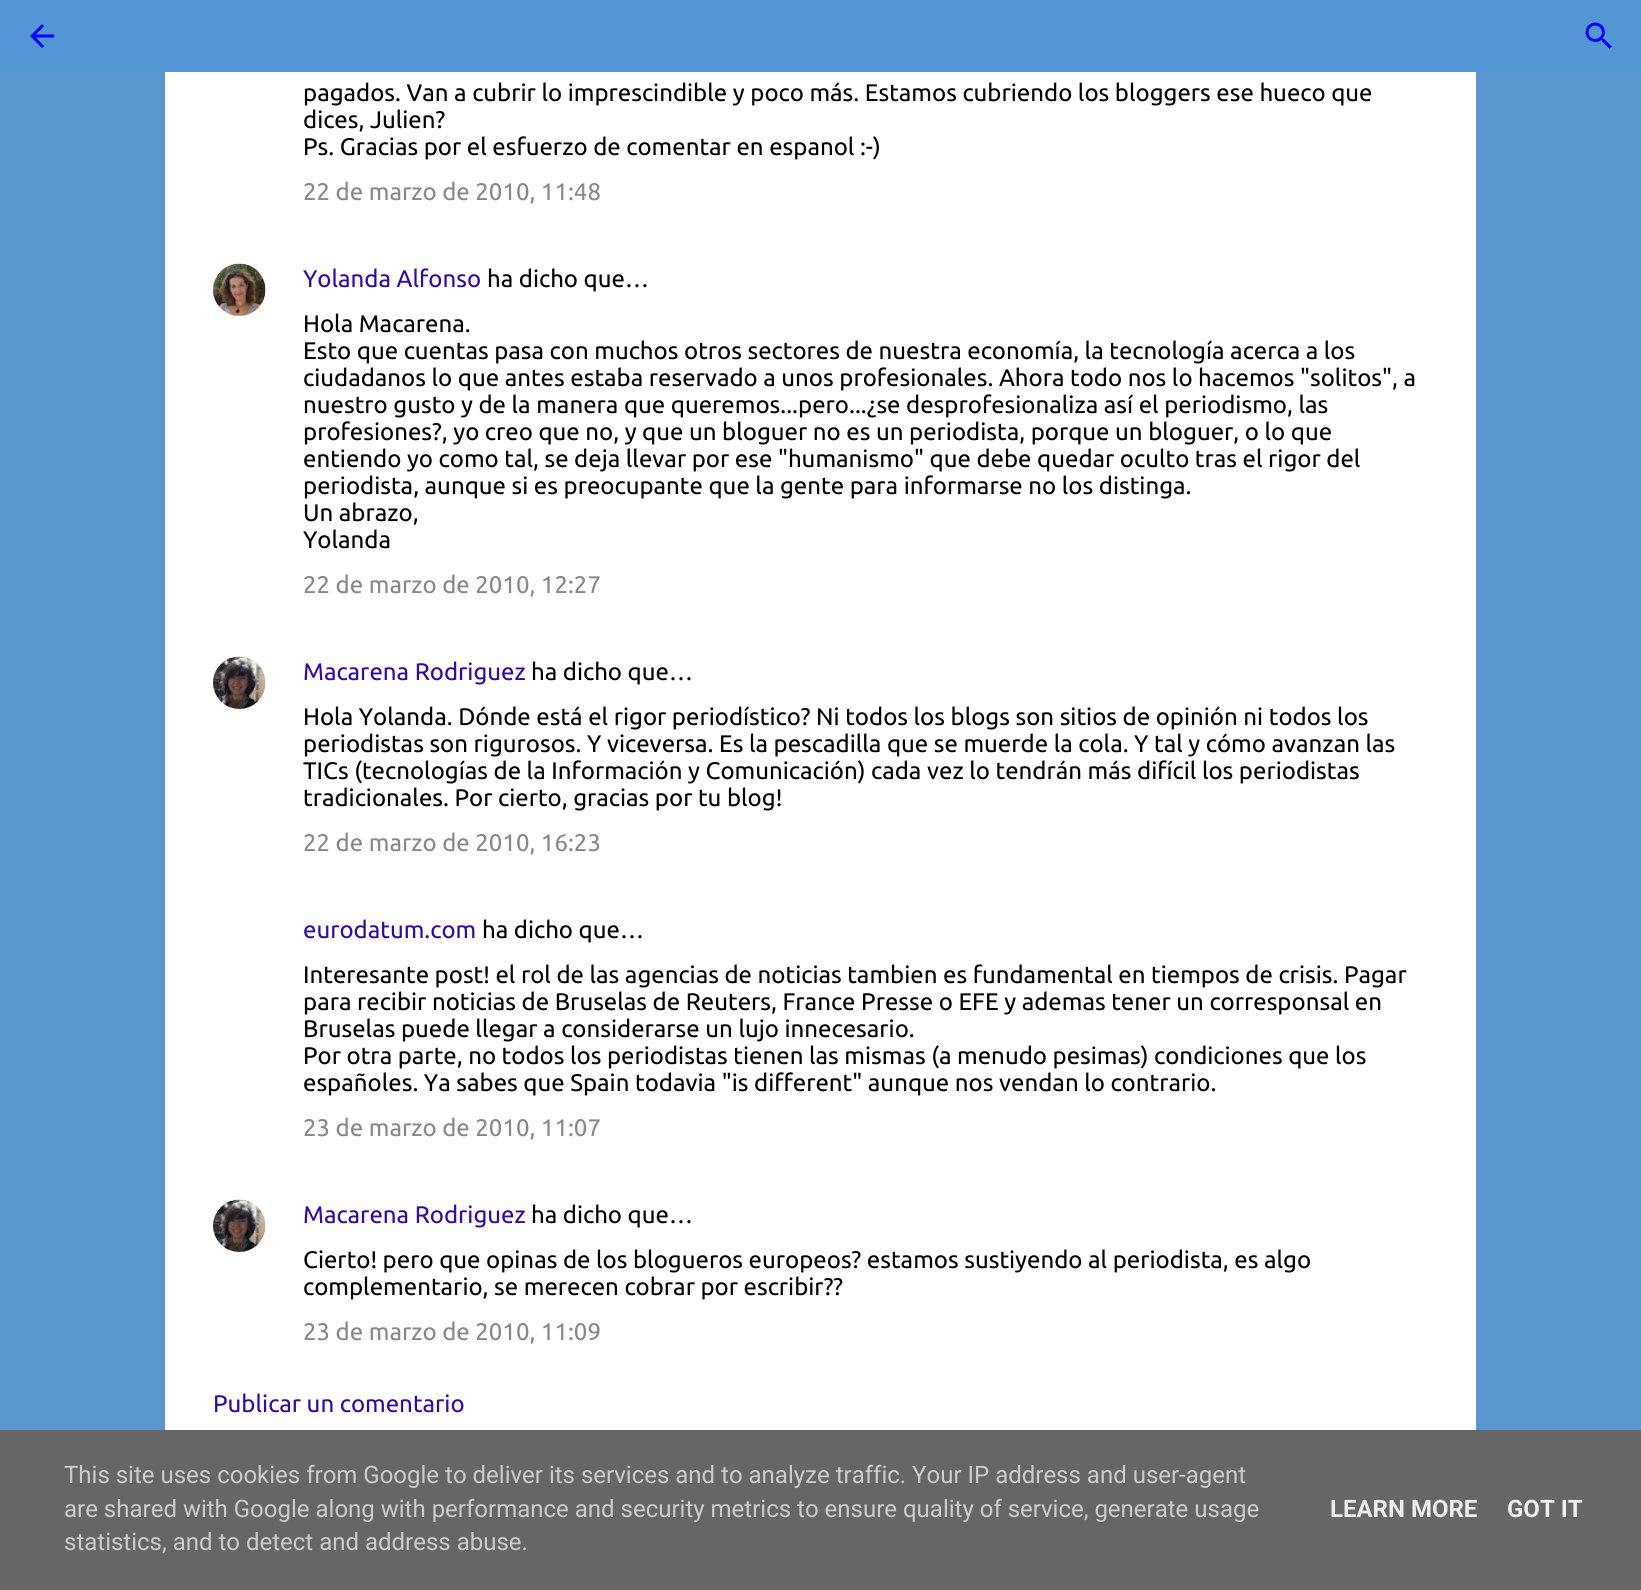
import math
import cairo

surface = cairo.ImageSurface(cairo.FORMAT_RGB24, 1641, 1590)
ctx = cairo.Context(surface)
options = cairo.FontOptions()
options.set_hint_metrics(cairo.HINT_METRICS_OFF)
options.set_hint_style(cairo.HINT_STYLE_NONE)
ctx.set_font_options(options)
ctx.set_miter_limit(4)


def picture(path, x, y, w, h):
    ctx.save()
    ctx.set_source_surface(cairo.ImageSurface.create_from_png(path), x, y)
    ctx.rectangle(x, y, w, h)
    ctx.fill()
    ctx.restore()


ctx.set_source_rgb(0.349, 0.584, 0.808)
ctx.paint()
ctx.set_source_rgb(0.322, 0.588, 0.839)
ctx.rectangle(0, 0, 1641, 72)
ctx.fill()
picture("img1.png", 30, 24, 24, 24)
picture("img2.png", 1585, 22, 27, 27)
ctx.set_source_rgb(1, 1, 1)
ctx.rectangle(165, 72, 1311, 1358)
ctx.fill()
ctx.select_font_face("Ubuntu")
ctx.set_font_size(24)
ctx.set_source_rgb(0, 0, 0)
ctx.move_to(303, 101)
ctx.show_text("pagados. Van a cubrir lo imprescindible y poco más. Estamos cubriendo los bloggers ese hueco que")
ctx.move_to(303, 128)
ctx.show_text("dices, Julien?")
ctx.move_to(303, 155)
ctx.show_text("Ps. Gracias por el esfuerzo de comentar en espanol :-)")
ctx.set_source_rgb(0.529, 0.529, 0.529)
ctx.move_to(303, 200)
ctx.show_text("22 de marzo de 2010, 11:48")
picture("img3.png", 213, 263, 53, 53)
ctx.set_source_rgb(0.204, 0.039, 0.612)
ctx.move_to(303, 287)
ctx.show_text("Yolanda Alfonso")
ctx.set_source_rgb(0, 0, 0)
ctx.move_to(487, 287)
ctx.show_text("ha dicho que…")
ctx.move_to(303, 332)
ctx.show_text("Hola Macarena.")
ctx.move_to(303, 359)
ctx.show_text("Esto que cuentas pasa con muchos otros sectores de nuestra economía, la tecnología acerca a los")
ctx.move_to(303, 386)
ctx.show_text("ciudadanos lo que antes estaba reservado a unos profesionales. Ahora todo nos lo hacemos \"solitos\", a")
ctx.move_to(303, 413)
ctx.show_text("nuestro gusto y de la manera que queremos...pero...¿se desprofesionaliza así el periodismo, las")
ctx.move_to(303, 440)
ctx.show_text("profesiones?, yo creo que no, y que un bloguer no es un periodista, porque un bloguer, o lo que")
ctx.move_to(303, 467)
ctx.show_text("entiendo yo como tal, se deja llevar por ese \"humanismo\" que debe quedar oculto tras el rigor del")
ctx.move_to(303, 494)
ctx.show_text("periodista, aunque si es preocupante que la gente para informarse no los distinga.")
ctx.move_to(303, 521)
ctx.show_text("Un abrazo,")
ctx.move_to(303, 548)
ctx.show_text("Yolanda")
ctx.set_source_rgb(0.529, 0.529, 0.529)
ctx.move_to(303, 593)
ctx.show_text("22 de marzo de 2010, 12:27")
picture("img4.png", 213, 656, 53, 53)
ctx.set_source_rgb(0.204, 0.039, 0.612)
ctx.move_to(303, 680)
ctx.show_text("Macarena Rodriguez")
ctx.set_source_rgb(0, 0, 0)
ctx.move_to(531, 680)
ctx.show_text("ha dicho que…")
ctx.move_to(303, 725)
ctx.show_text("Hola Yolanda. Dónde está el rigor periodístico? Ni todos los blogs son sitios de opinión ni todos los")
ctx.move_to(303, 752)
ctx.show_text("periodistas son rigurosos. Y viceversa. Es la pescadilla que se muerde la cola. Y tal y cómo avanzan las")
ctx.move_to(303, 779)
ctx.show_text("TICs (tecnologías de la Información y Comunicación) cada vez lo tendrán más difícil los periodistas")
ctx.move_to(303, 806)
ctx.show_text("tradicionales. Por cierto, gracias por tu blog!")
ctx.set_source_rgb(0.529, 0.529, 0.529)
ctx.move_to(303, 851)
ctx.show_text("22 de marzo de 2010, 16:23")
ctx.set_source_rgb(0.204, 0.039, 0.612)
ctx.move_to(303, 938)
ctx.show_text("eurodatum.com")
ctx.set_source_rgb(0, 0, 0)
ctx.move_to(482, 938)
ctx.show_text("ha dicho que…")
ctx.move_to(303, 983)
ctx.show_text("Interesante post! el rol de las agencias de noticias tambien es fundamental en tiempos de crisis. Pagar")
ctx.move_to(303, 1010)
ctx.show_text("para recibir noticias de Bruselas de Reuters, France Presse o EFE y ademas tener un corresponsal en")
ctx.move_to(303, 1037)
ctx.show_text("Bruselas puede llegar a considerarse un lujo innecesario.")
ctx.move_to(303, 1064)
ctx.show_text("Por otra parte, no todos los periodistas tienen las mismas (a menudo pesimas) condiciones que los")
ctx.move_to(303, 1091)
ctx.show_text("españoles. Ya sabes que Spain todavia \"is different\" aunque nos vendan lo contrario.")
ctx.set_source_rgb(0.529, 0.529, 0.529)
ctx.move_to(303, 1136)
ctx.show_text("23 de marzo de 2010, 11:07")
picture("img5.png", 213, 1199, 53, 53)
ctx.set_source_rgb(0.204, 0.039, 0.612)
ctx.move_to(303, 1223)
ctx.show_text("Macarena Rodriguez")
ctx.set_source_rgb(0, 0, 0)
ctx.move_to(531, 1223)
ctx.show_text("ha dicho que…")
ctx.move_to(303, 1268)
ctx.show_text("Cierto! pero que opinas de los blogueros europeos? estamos sustiyendo al periodista, es algo")
ctx.move_to(303, 1295)
ctx.show_text("complementario, se merecen cobrar por escribir??")
ctx.set_source_rgb(0.529, 0.529, 0.529)
ctx.move_to(303, 1340)
ctx.show_text("23 de marzo de 2010, 11:09")
ctx.set_source_rgb(0.204, 0.039, 0.612)
ctx.move_to(213, 1412)
ctx.show_text("Publicar un comentario")
ctx.set_source_rgb(0.4, 0.4, 0.4)
ctx.rectangle(0, 1430, 1641, 160)
ctx.fill()
ctx.select_font_face("Roboto")
ctx.set_source_rgb(0.8, 0.8, 0.8)
ctx.move_to(64, 1483)
ctx.show_text("This site uses cookies from Google to deliver its services and to analyze traffic. Your IP address and user-agent")
ctx.move_to(64, 1517)
ctx.show_text("are shared with Google along with performance and security metrics to ensure quality of service, generate usage")
ctx.move_to(64, 1550)
ctx.show_text("statistics, and to detect and address abuse.")
ctx.select_font_face("Roboto", cairo.FONT_SLANT_NORMAL, cairo.FONT_WEIGHT_BOLD)
ctx.set_source_rgb(0.933, 0.933, 0.933)
ctx.move_to(1330, 1517)
ctx.show_text("LEARN MORE")
ctx.move_to(1507, 1517)
ctx.show_text("GOT IT")
surface.write_to_png("page.png")
